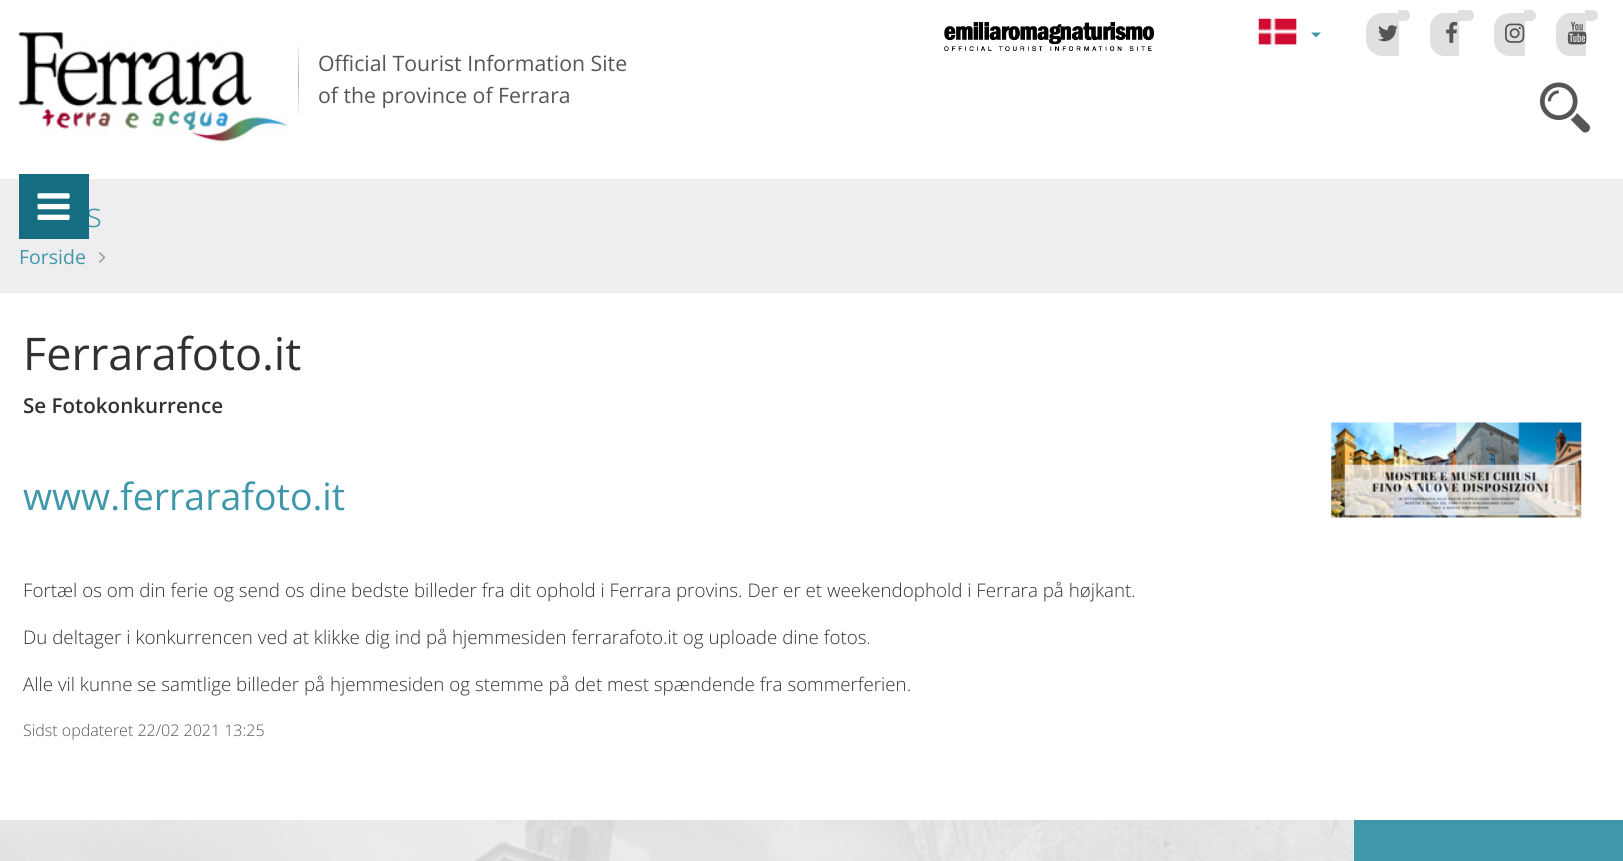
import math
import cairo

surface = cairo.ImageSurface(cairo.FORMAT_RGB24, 1623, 861)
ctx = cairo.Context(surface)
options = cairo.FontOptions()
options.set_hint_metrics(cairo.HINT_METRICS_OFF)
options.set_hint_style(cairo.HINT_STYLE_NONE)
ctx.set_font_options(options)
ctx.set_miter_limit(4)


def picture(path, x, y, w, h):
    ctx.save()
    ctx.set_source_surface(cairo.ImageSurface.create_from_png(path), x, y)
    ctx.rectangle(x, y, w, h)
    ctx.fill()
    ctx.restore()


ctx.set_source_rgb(1, 1, 1)
ctx.paint()
picture("img1.png", 944, 22, 210, 29)
picture("img2.png", 1258, 18, 39, 27)
ctx.set_source_rgb(0.247, 0.592, 0.667)
ctx.new_path()
ctx.move_to(1311, 32.5)
ctx.line_to(1321, 32.5)
ctx.line_to(1316, 37.5)
ctx.close_path()
ctx.fill()
ctx.set_source_rgb(0.878, 0.878, 0.878)
ctx.new_path()
ctx.move_to(1382.5, 13)
ctx.line_to(1399, 13)
ctx.line_to(1399, 56)
ctx.line_to(1382.5, 56)
ctx.curve_to(1373.5, 56, 1366, 48.5, 1366, 39.5)
ctx.line_to(1366, 29.5)
ctx.curve_to(1366, 20.5, 1373.5, 13, 1382.5, 13)
ctx.close_path()
ctx.fill()
ctx.new_path()
ctx.move_to(1398, 10)
ctx.line_to(1404.5, 10)
ctx.curve_to(1407.5, 10, 1410, 12.5, 1410, 15.5)
ctx.curve_to(1410, 18.5, 1407.5, 21, 1404.5, 21)
ctx.line_to(1398, 21)
ctx.close_path()
ctx.fill()
picture("img3.png", 1378, 25, 20, 17)
ctx.new_path()
ctx.move_to(1444.5, 13)
ctx.line_to(1459, 13)
ctx.line_to(1459, 56)
ctx.line_to(1444.5, 56)
ctx.curve_to(1436.5, 56, 1430, 49.5, 1430, 41.5)
ctx.line_to(1430, 27.5)
ctx.curve_to(1430, 19.5, 1436.5, 13, 1444.5, 13)
ctx.close_path()
ctx.fill()
ctx.new_path()
ctx.move_to(1458, 10)
ctx.line_to(1468.5, 10)
ctx.curve_to(1471.5, 10, 1474, 12.5, 1474, 15.5)
ctx.curve_to(1474, 18.5, 1471.5, 21, 1468.5, 21)
ctx.line_to(1458, 21)
ctx.close_path()
ctx.fill()
picture("img4.png", 1446, 22, 12, 21)
ctx.new_path()
ctx.move_to(1509.5, 13)
ctx.line_to(1525, 13)
ctx.line_to(1525, 56)
ctx.line_to(1509.5, 56)
ctx.curve_to(1501, 56, 1494, 49, 1494, 40.5)
ctx.line_to(1494, 28.5)
ctx.curve_to(1494, 20, 1501, 13, 1509.5, 13)
ctx.close_path()
ctx.fill()
ctx.new_path()
ctx.move_to(1524, 10)
ctx.line_to(1530.5, 10)
ctx.curve_to(1533.5, 10, 1536, 12.5, 1536, 15.5)
ctx.curve_to(1536, 18.5, 1533.5, 21, 1530.5, 21)
ctx.line_to(1524, 21)
ctx.close_path()
ctx.fill()
picture("img5.png", 1505, 23, 20, 20)
ctx.new_path()
ctx.move_to(1571, 13)
ctx.line_to(1586, 13)
ctx.line_to(1586, 56)
ctx.line_to(1571, 56)
ctx.curve_to(1562.5, 56, 1556, 49.5, 1556, 41)
ctx.line_to(1556, 28)
ctx.curve_to(1556, 19.5, 1562.5, 13, 1571, 13)
ctx.close_path()
ctx.fill()
ctx.new_path()
ctx.move_to(1585, 10)
ctx.line_to(1592.5, 10)
ctx.curve_to(1595.5, 10, 1598, 12.5, 1598, 15.5)
ctx.curve_to(1598, 18.5, 1595.5, 21, 1592.5, 21)
ctx.line_to(1585, 21)
ctx.close_path()
ctx.fill()
picture("img6.png", 1567, 21, 20, 24)
picture("img7.png", 18, 32, 270, 110)
gradient = cairo.LinearGradient(298, 41, 298, 118)
gradient.add_color_stop_rgba(0, 1, 1, 1, 1)
gradient.add_color_stop_rgba(0.5, 0.69, 0.69, 0.69, 1)
gradient.add_color_stop_rgba(1, 1, 1, 1, 1)
ctx.set_source(gradient)
ctx.rectangle(298, 41, 1, 77)
ctx.fill()
ctx.select_font_face("Open Sans")
ctx.set_font_size(21.25)
ctx.set_source_rgb(0.333, 0.333, 0.333)
ctx.move_to(318, 71)
ctx.show_text("Official Tourist Information Site")
ctx.move_to(318, 103)
ctx.show_text("of the province of Ferrara")
picture("img8.png", 1540, 82, 50, 51)
ctx.set_source_rgb(0.937, 0.929, 0.937)
ctx.rectangle(0, 179, 1623, 114)
ctx.fill()
ctx.select_font_face("Open Sans Light")
ctx.set_font_size(34)
ctx.set_source_rgb(0.247, 0.592, 0.667)
ctx.move_to(86, 227)
ctx.show_text("s")
ctx.set_source_rgb(0.082, 0.427, 0.502)
ctx.rectangle(19, 174, 70, 65)
ctx.fill()
picture("img9.png", 37, 193, 33, 27)
ctx.select_font_face("Open Sans")
ctx.set_font_size(19.5)
ctx.set_source_rgb(0.247, 0.592, 0.667)
ctx.move_to(19, 264)
ctx.show_text("Forside")
picture("img10.png", 99, 252, 7, 11)
ctx.set_font_size(45)
ctx.set_source_rgb(0.192, 0.192, 0.192)
ctx.move_to(23, 370)
ctx.show_text("Ferrarafoto.it")
ctx.select_font_face("Open Sans SemiBold")
ctx.set_font_size(20.6)
ctx.move_to(23, 413)
ctx.show_text("Se Fotokonkurrence")
picture("img11.png", 1331, 422, 251, 96)
ctx.select_font_face("Open Sans")
ctx.set_font_size(37.5)
ctx.set_source_rgb(0.247, 0.592, 0.667)
ctx.move_to(23, 510)
ctx.show_text("www.ferrarafoto.it")
ctx.select_font_face("Open Sans Light")
ctx.set_font_size(18.75)
ctx.set_source_rgb(0.192, 0.192, 0.192)
ctx.move_to(23, 597)
ctx.show_text("Fortæl os om din ferie og send os dine bedste billeder fra dit ophold i Ferrara provins. Der er et weekendophold i Ferrara på højkant.")
ctx.move_to(23, 644)
ctx.show_text("Du deltager i konkurrencen ved at klikke dig ind på hjemmesiden ferrarafoto.it og uploade dine fotos.")
ctx.move_to(23, 691)
ctx.show_text("Alle vil kunne se samtlige billeder på hjemmesiden og stemme på det mest spændende fra sommerferien.")
ctx.set_font_size(16)
ctx.set_source_rgb(0.333, 0.333, 0.333)
ctx.move_to(23, 736)
ctx.show_text("Sidst opdateret 22/02 2021 13:25")
picture("img12.png", 0, 820, 1354, 41)
ctx.set_source_rgb(0.247, 0.592, 0.667)
ctx.rectangle(1354, 820, 269, 41)
ctx.fill()
surface.write_to_png("page.png")
